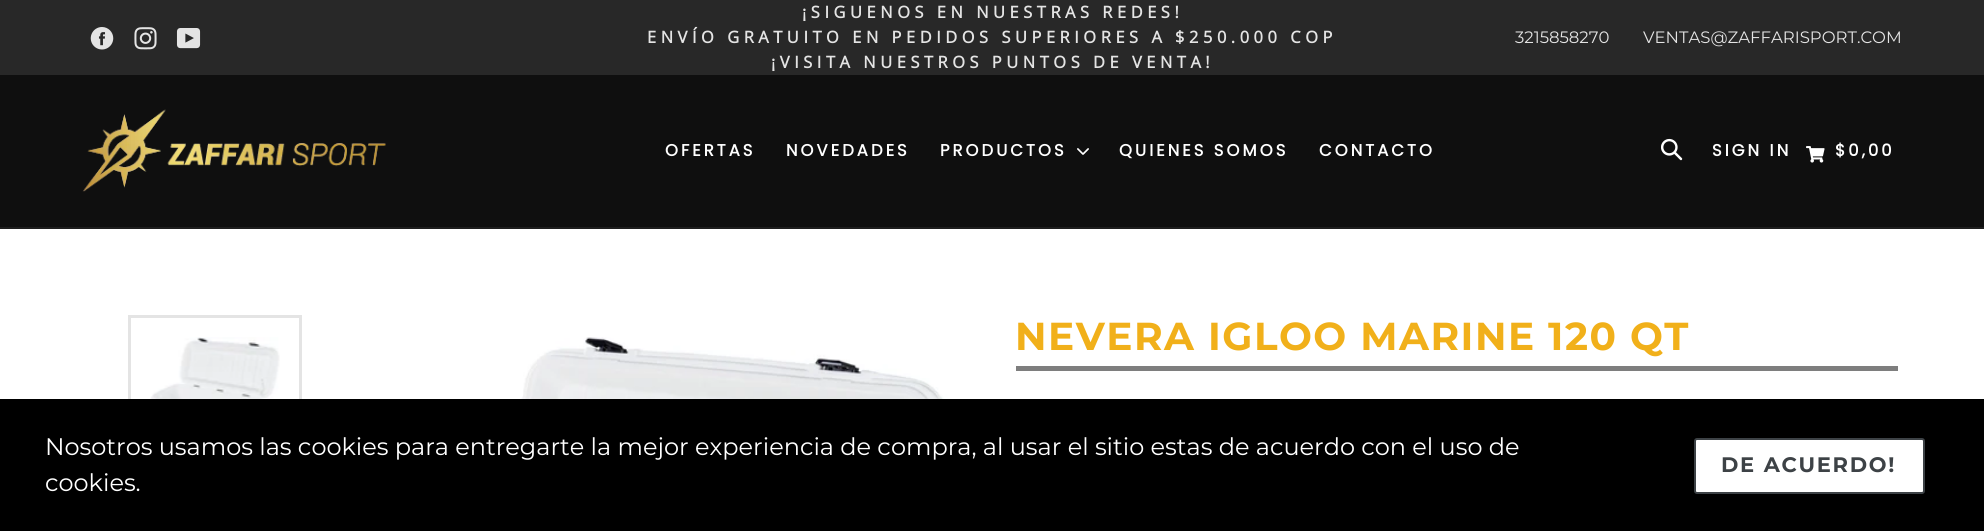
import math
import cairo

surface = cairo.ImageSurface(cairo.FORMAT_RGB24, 1984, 531)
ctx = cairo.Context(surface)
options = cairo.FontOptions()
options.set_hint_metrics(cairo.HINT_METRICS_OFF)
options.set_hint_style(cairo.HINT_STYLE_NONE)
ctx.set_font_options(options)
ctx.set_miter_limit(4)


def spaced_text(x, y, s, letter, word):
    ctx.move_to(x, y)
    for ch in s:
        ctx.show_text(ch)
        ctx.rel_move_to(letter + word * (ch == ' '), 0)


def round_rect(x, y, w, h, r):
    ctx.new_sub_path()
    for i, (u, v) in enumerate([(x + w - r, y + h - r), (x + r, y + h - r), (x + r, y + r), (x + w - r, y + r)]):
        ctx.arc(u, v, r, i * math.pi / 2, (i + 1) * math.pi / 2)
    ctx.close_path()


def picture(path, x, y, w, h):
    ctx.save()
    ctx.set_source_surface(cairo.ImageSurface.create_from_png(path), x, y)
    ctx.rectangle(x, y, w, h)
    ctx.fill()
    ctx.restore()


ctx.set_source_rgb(1, 1, 1)
ctx.paint()
ctx.set_source_rgb(0.157, 0.157, 0.157)
ctx.rectangle(0, 0, 1984, 75)
ctx.fill()
picture("img1.png", 90, 27, 24, 23)
picture("img2.png", 134, 27, 23, 23)
picture("img3.png", 176, 28, 25, 21)
ctx.select_font_face("Open Sans", cairo.FONT_SLANT_NORMAL, cairo.FONT_WEIGHT_BOLD)
ctx.set_font_size(16.5)
ctx.set_source_rgb(0.894, 0.894, 0.894)
spaced_text(802, 18, "¡SIGUENOS EN NUESTRAS REDES!", 4.5, 0)
spaced_text(647, 43, "ENVÍO GRATUITO EN PEDIDOS SUPERIORES A $250.000 COP", 4.5, 0)
spaced_text(771, 68, "¡VISITA NUESTROS PUNTOS DE VENTA!", 4.5, 0)
ctx.select_font_face("Montserrat Thin")
ctx.move_to(1515, 43)
ctx.show_text("3215858270")
ctx.move_to(1643, 43)
ctx.show_text("VENTAS@ZAFFARISPORT.COM")
ctx.set_source_rgb(0.059, 0.059, 0.059)
ctx.rectangle(0, 75, 1984, 152)
ctx.fill()
ctx.set_source_rgb(0.118, 0.118, 0.118)
ctx.rectangle(0, 227, 1984, 2)
ctx.fill()
picture("img4.png", 82, 109, 304, 83)
ctx.select_font_face("Poppins", cairo.FONT_SLANT_NORMAL, cairo.FONT_WEIGHT_BOLD)
ctx.set_source_rgb(1, 1, 1)
spaced_text(665, 156, "OFERTAS", 3, 0)
spaced_text(786, 156, "NOVEDADES", 3, 0)
spaced_text(940, 156, "PRODUCTOS", 3, 0)
picture("img5.png", 1077, 148, 12, 7)
spaced_text(1119, 156, "QUIENES SOMOS", 3, 0)
spaced_text(1319, 156, "CONTACTO", 3, 0)
picture("img6.png", 1661, 138, 22, 23)
spaced_text(1712, 156, "SIGN IN", 3, 0)
picture("img7.png", 1806, 146, 19, 17)
spaced_text(1835, 156, "$0,00", 3, 0)
ctx.rectangle(129.5, 316.5, 171, 171)
ctx.set_source_rgb(0.894, 0.894, 0.894)
ctx.set_line_width(3)
ctx.stroke()
picture("img8.png", 149, 337, 131, 62)
picture("img9.png", 503, 337, 448, 62)
ctx.set_source_rgb(0.494, 0.494, 0.494)
ctx.rectangle(1016, 366, 882, 5)
ctx.fill()
ctx.select_font_face("Montserrat", cairo.FONT_SLANT_NORMAL, cairo.FONT_WEIGHT_BOLD)
ctx.set_font_size(39)
ctx.set_source_rgb(0.945, 0.69, 0.102)
spaced_text(1015, 350, "NEVERA IGLOO MARINE 120 QT", 1.5, 0)
ctx.set_source_rgb(0, 0, 0)
ctx.rectangle(0, 399, 1984, 132)
ctx.fill()
ctx.select_font_face("Montserrat Thin")
ctx.set_font_size(24)
ctx.set_source_rgb(1, 1, 1)
ctx.move_to(45, 455)
ctx.show_text("Nosotros usamos las cookies para entregarte la mejor experiencia de compra, al usar el sitio estas de acuerdo con el uso de")
ctx.move_to(45, 491)
ctx.show_text("cookies.")
round_rect(1695, 439, 229, 54, 2)
ctx.fill_preserve()
ctx.set_source_rgb(0.239, 0.259, 0.275)
ctx.set_line_width(2)
ctx.stroke()
ctx.select_font_face("Montserrat", cairo.FONT_SLANT_NORMAL, cairo.FONT_WEIGHT_BOLD)
ctx.set_font_size(21)
spaced_text(1721, 472, "DE ACUERDO!", 1.75, 0)
surface.write_to_png("page.png")
